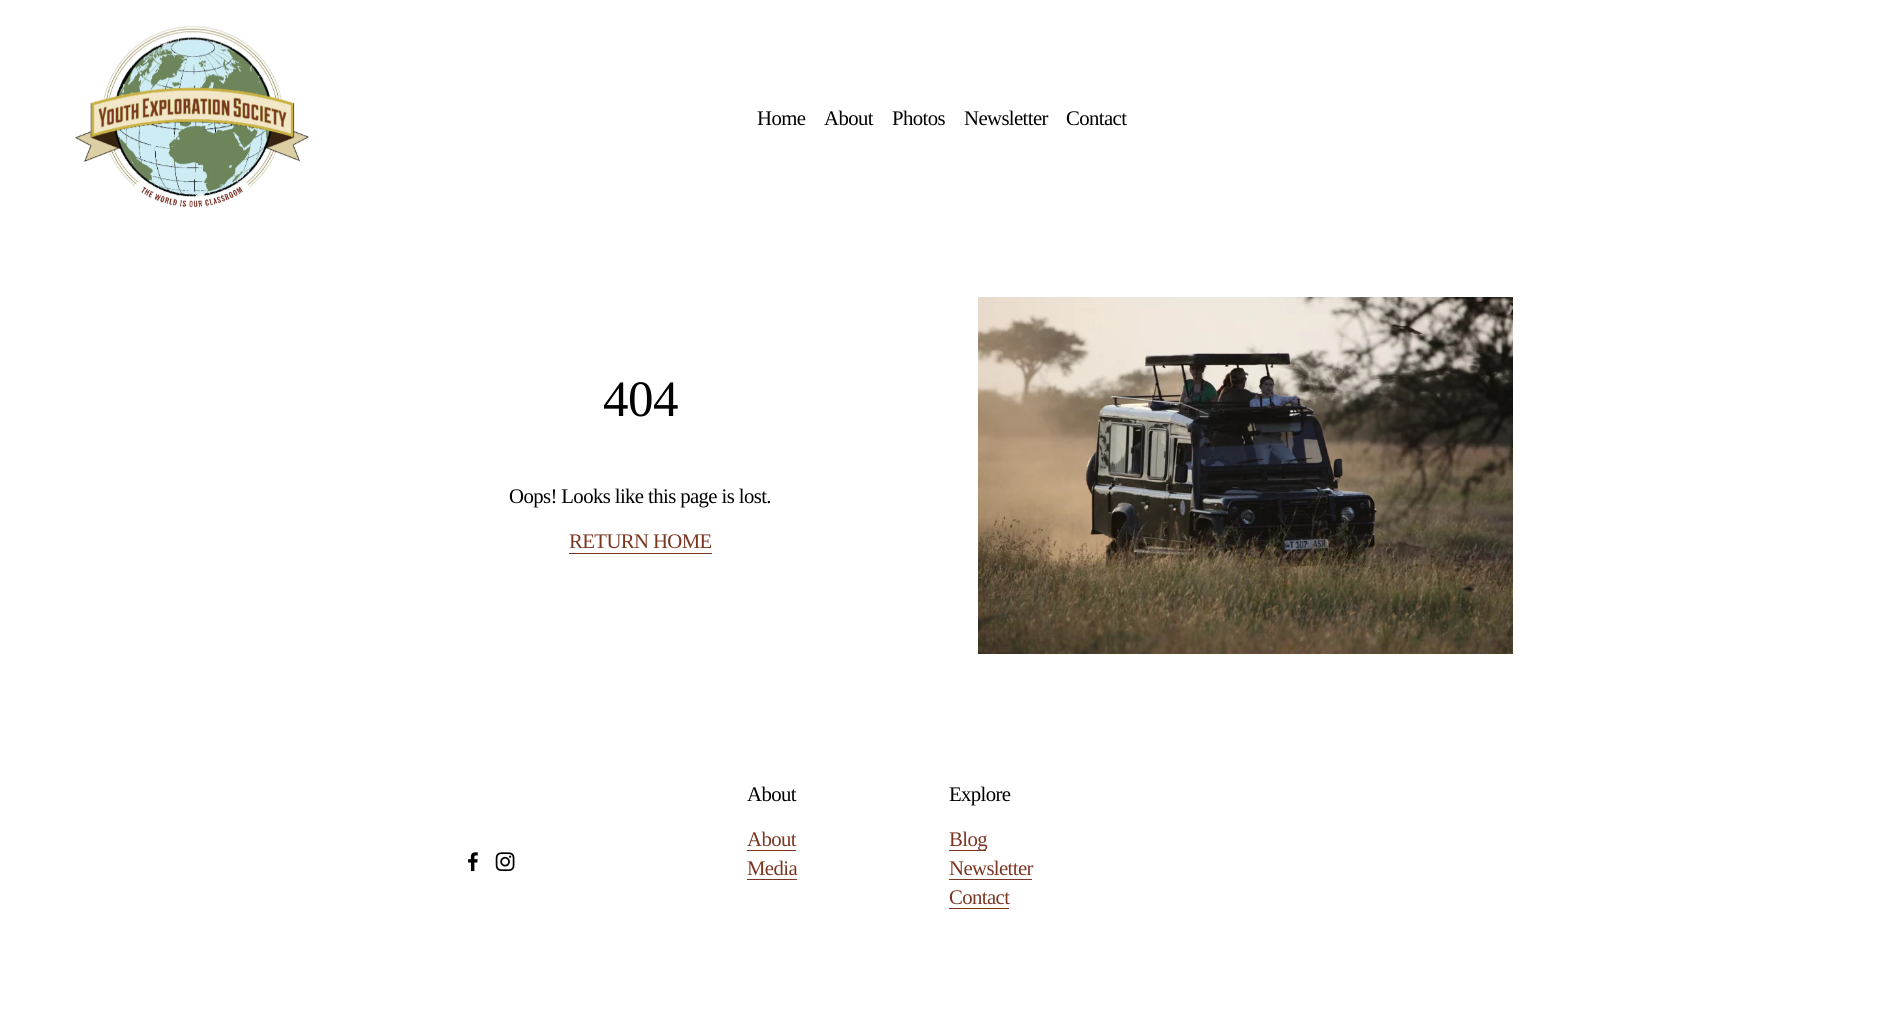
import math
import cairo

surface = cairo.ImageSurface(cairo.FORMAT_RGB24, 1886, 1009)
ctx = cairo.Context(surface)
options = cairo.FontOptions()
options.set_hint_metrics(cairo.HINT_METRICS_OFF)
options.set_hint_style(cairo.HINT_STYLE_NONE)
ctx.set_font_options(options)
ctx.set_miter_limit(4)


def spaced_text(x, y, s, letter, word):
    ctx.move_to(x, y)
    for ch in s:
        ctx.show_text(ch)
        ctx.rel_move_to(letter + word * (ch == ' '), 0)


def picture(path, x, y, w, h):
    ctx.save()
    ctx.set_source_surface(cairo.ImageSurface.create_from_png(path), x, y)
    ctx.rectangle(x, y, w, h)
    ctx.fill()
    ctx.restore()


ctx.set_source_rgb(1, 1, 1)
ctx.paint()
picture("img1.png", 75, 26, 234, 182)
ctx.select_font_face("Liberation Serif")
ctx.set_font_size(20.75)
ctx.set_source_rgb(0, 0, 0)
spaced_text(757, 125, "Home", -0.6, 0)
spaced_text(824, 125, "About", -0.6, 0)
spaced_text(892, 125, "Photos", -0.6, 0)
spaced_text(964, 125, "Newsletter", -0.6, 0)
spaced_text(1066, 125, "Contact", -0.6, 0)
ctx.set_font_size(51)
spaced_text(603, 416, "404", -0.5, 0)
picture("img2.png", 978, 297, 535, 357)
ctx.set_font_size(20.75)
spaced_text(509, 503, "Oops! Looks like this page is lost.", -0.6, 0)
ctx.set_source_rgb(0.482, 0.212, 0.133)
spaced_text(569, 548, "RETURN HOME", -0.6, 0)
ctx.rectangle(569, 553, 143, 1)
ctx.fill()
picture("img3.png", 468, 852, 10, 20)
picture("img4.png", 495, 852, 20, 20)
ctx.set_source_rgb(0, 0, 0)
spaced_text(747, 801, "About", -0.6, 0)
ctx.set_source_rgb(0.482, 0.212, 0.133)
spaced_text(747, 846, "About", -0.6, 0)
ctx.rectangle(747, 850, 49, 1)
ctx.fill()
spaced_text(747, 875, "Media", -0.6, 0)
ctx.rectangle(747, 879, 50, 1)
ctx.fill()
ctx.set_source_rgb(0, 0, 0)
spaced_text(949, 801, "Explore", -0.6, 0)
ctx.set_source_rgb(0.482, 0.212, 0.133)
ctx.rectangle(949, 850, 37, 1)
ctx.fill()
spaced_text(949, 846, "Blog", -0.6, 0)
spaced_text(949, 875, "Newsletter", -0.6, 0)
ctx.rectangle(949, 879, 83, 1)
ctx.fill()
spaced_text(949, 904, "Contact", -0.6, 0)
ctx.rectangle(949, 908, 60, 1)
ctx.fill()
surface.write_to_png("page.png")
